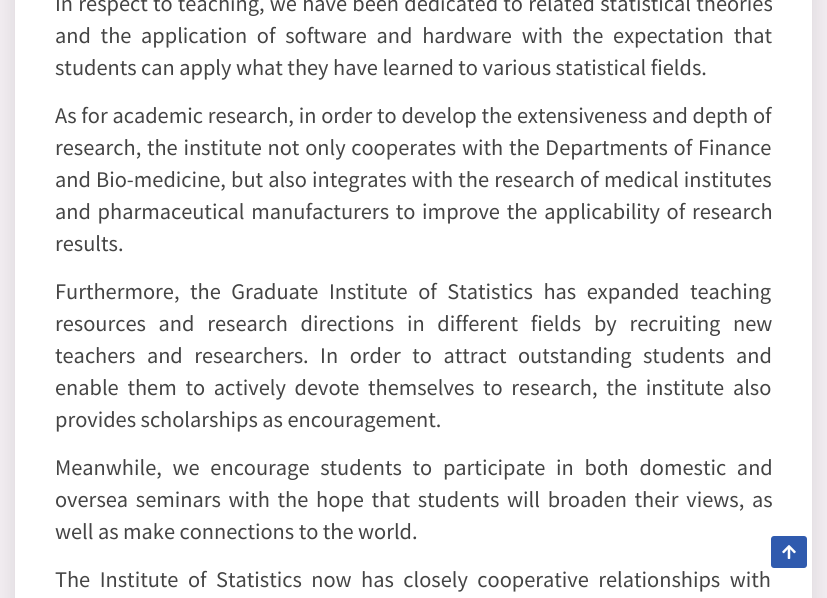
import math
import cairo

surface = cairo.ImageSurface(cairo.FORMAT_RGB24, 827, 598)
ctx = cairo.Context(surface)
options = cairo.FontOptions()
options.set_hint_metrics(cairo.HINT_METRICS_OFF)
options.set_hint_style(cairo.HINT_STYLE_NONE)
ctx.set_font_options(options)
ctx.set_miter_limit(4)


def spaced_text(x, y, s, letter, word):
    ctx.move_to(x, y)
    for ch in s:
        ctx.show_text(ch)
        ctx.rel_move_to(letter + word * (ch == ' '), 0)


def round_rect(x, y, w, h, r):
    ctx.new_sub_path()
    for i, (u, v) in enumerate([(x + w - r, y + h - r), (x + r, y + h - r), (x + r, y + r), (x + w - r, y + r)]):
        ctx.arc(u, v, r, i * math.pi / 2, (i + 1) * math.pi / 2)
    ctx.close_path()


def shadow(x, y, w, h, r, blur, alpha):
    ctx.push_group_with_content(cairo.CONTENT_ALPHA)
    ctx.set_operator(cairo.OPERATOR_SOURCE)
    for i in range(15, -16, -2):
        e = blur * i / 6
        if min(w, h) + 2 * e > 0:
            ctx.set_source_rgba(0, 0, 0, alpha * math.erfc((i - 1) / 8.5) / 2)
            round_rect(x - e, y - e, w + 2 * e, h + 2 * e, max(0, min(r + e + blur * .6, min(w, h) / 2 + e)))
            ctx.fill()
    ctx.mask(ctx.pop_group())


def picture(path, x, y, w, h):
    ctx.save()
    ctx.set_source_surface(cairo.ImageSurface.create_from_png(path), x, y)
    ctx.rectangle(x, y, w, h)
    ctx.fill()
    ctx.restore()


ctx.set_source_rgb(0.945, 0.925, 0.941)
ctx.paint()
ctx.set_source_rgb(0, 0, 0)
shadow(15, -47, 797, 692, 20, 9, 0.1)
ctx.set_source_rgb(1, 1, 1)
ctx.rectangle(15, 0, 797, 598)
ctx.fill()
ctx.select_font_face("Noto Sans TC")
ctx.set_font_size(20)
ctx.set_source_rgb(0.267, 0.267, 0.267)
spaced_text(55, 11, "In respect to teaching, we have been dedicated to related statistical theories", 0, 0.75)
spaced_text(55, 43, "and the application of software and hardware with the expectation that", 0, 5.25)
ctx.move_to(55, 75)
ctx.show_text("students can apply what they have learned to various statistical fields.")
spaced_text(55, 123, "As for academic research, in order to develop the extensiveness and depth of", 0, 0.3)
spaced_text(55, 155, "research, the institute not only cooperates with the Departments of Finance", 0, 1.25)
spaced_text(55, 187, "and Bio-medicine, but also integrates with the research of medical institutes", 0, 0.75)
spaced_text(55, 219, "and pharmaceutical manufacturers to improve the applicability of research", 0, 2.25)
ctx.move_to(55, 251)
ctx.show_text("results.")
spaced_text(55, 299, "Furthermore, the Graduate Institute of Statistics has expanded teaching", 0, 6)
spaced_text(55, 331, "resources and research directions in different fields by recruiting", 0, 8.25)
ctx.move_to(733, 331)
ctx.show_text("new")
spaced_text(55, 363, "teachers and researchers. In order to attract outstanding students and", 0, 7)
spaced_text(55, 395, "enable them to actively devote themselves to research, the institute also", 0, 4.25)
ctx.move_to(55, 427)
ctx.show_text("provides scholarships as encouragement.")
spaced_text(55, 475, "Meanwhile, we encourage students to participate in both domestic and", 0, 6.25)
spaced_text(55, 507, "oversea seminars with the hope that students will broaden their views, as", 0, 3.25)
ctx.move_to(55, 539)
ctx.show_text("well as make connections to the world.")
spaced_text(55, 587, "The Institute of Statistics now has closely cooperative relationships with", 0, 5)
ctx.set_source_rgb(0.184, 0.353, 0.682)
round_rect(771, 536, 36, 32, 3)
ctx.fill()
picture("img1.png", 782, 545, 14, 14)
surface.write_to_png("page.png")
